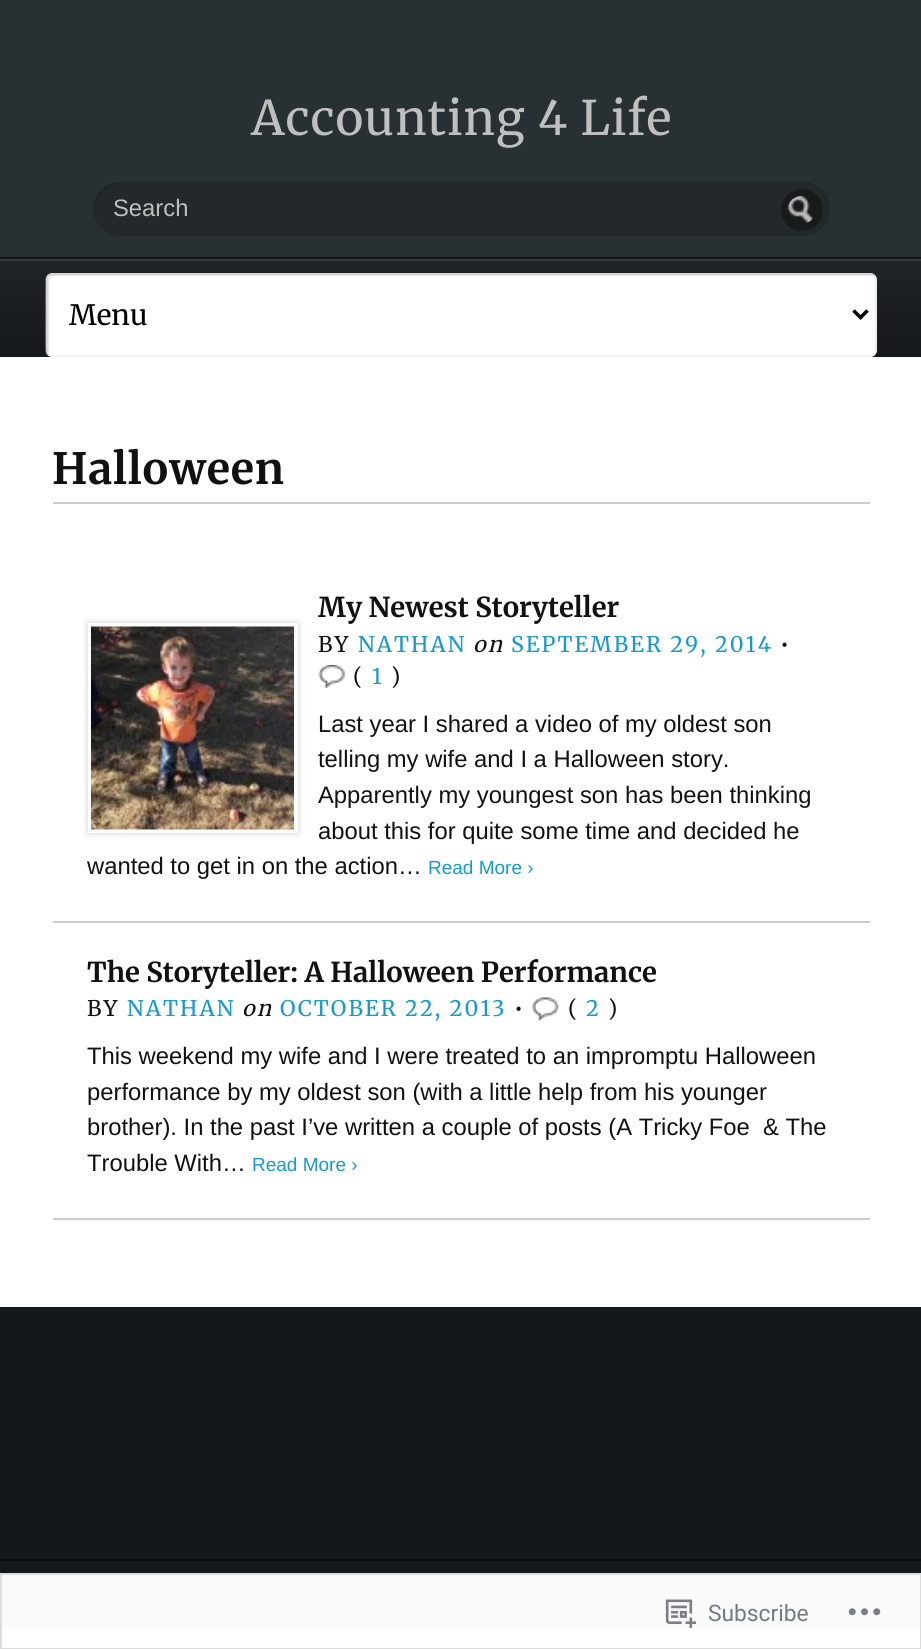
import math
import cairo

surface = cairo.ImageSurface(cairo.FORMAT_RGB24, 921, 1649)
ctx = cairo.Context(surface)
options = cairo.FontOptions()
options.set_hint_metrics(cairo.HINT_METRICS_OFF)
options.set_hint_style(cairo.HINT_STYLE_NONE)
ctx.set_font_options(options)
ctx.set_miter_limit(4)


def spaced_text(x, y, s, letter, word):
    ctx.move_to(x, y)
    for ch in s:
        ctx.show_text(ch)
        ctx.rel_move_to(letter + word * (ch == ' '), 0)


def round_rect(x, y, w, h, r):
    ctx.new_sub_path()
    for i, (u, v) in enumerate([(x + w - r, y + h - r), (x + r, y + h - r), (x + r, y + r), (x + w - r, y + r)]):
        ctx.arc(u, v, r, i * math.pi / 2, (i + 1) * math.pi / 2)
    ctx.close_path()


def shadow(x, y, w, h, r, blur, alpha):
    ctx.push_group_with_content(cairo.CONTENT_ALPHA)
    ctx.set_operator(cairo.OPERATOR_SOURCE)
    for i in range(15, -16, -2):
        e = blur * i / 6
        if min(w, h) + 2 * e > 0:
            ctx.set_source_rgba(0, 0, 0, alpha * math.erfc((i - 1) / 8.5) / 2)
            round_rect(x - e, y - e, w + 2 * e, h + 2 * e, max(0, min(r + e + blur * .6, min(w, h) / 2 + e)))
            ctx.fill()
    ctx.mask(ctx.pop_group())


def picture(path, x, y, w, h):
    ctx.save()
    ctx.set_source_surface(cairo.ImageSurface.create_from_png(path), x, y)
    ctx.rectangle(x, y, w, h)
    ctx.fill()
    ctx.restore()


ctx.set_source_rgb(1, 1, 1)
ctx.paint()
ctx.set_source_rgb(0.161, 0.188, 0.2)
ctx.rectangle(0, 0, 921, 257)
ctx.fill()
ctx.select_font_face("Merriweather")
ctx.set_font_size(47.5)
ctx.set_source_rgb(0.749, 0.749, 0.749)
spaced_text(251, 135, "Accounting 4 Life", 1, 0)
ctx.set_source_rgb(0.137, 0.161, 0.169)
round_rect(93, 182, 737, 54, 27)
ctx.fill()
ctx.set_source_rgba(0, 0, 0, 0.1)
ctx.new_path()
ctx.move_to(122, 184)
ctx.line_to(804, 184)
ctx.curve_to(814, 184, 823, 189, 827, 198)
ctx.curve_to(823, 188, 814, 182, 803, 182)
ctx.line_to(120, 182)
ctx.curve_to(105, 182, 93, 194, 93, 209)
ctx.curve_to(93, 214, 95, 220, 97, 224)
ctx.curve_to(87, 206, 102, 184, 122, 184)
ctx.close_path()
ctx.fill()
ctx.select_font_face("Liberation Sans")
ctx.set_font_size(23.8)
ctx.set_source_rgb(0.749, 0.749, 0.749)
ctx.move_to(113, 216)
ctx.show_text("Search")
ctx.set_source_rgb(0.09, 0.106, 0.11)
ctx.new_path()
ctx.arc(802, 210, 21, 0, 2 * math.pi)
ctx.fill()
picture("img1.png", 787, 196, 26, 27)
gradient = cairo.LinearGradient(461, 161, 461, 259)
gradient.add_color_stop_rgba(0, 0.122, 0.141, 0.149, 1)
gradient.add_color_stop_rgba(1, 0.082, 0.094, 0.102, 1)
ctx.set_source(gradient)
ctx.rectangle(0, 257, 921, 2)
ctx.fill()
gradient = cairo.LinearGradient(461, 259, 461, 357)
gradient.add_color_stop_rgba(0, 0.122, 0.141, 0.149, 1)
gradient.add_color_stop_rgba(1, 0.082, 0.094, 0.102, 1)
ctx.set_source(gradient)
ctx.rectangle(0, 261, 921, 96)
ctx.fill()
ctx.save()
ctx.rectangle(0, 259, 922, 98)
ctx.clip()
ctx.set_source_rgb(0.208, 0.227, 0.235)
ctx.set_fill_rule(cairo.FILL_RULE_EVEN_ODD)
ctx.new_path()
ctx.move_to(-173, 86)
ctx.line_to(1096, 86)
ctx.line_to(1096, 530)
ctx.line_to(-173, 530)
ctx.close_path()
ctx.move_to(0, 261)
ctx.line_to(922, 261)
ctx.curve_to(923, 261, 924, 262, 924, 262)
ctx.line_to(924, 360)
ctx.curve_to(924, 361, 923, 362, 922, 362)
ctx.line_to(0, 362)
ctx.curve_to(-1, 362, -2, 361, -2, 360)
ctx.line_to(-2, 262)
ctx.curve_to(-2, 262, -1, 261, 0, 261)
ctx.close_path()
ctx.fill()
ctx.restore()
ctx.set_source_rgb(1, 1, 1)
round_rect(46, 273, 831, 84, 7)
ctx.fill()
ctx.set_source_rgb(0.902, 0.902, 0.902)
ctx.new_path()
ctx.move_to(54, 276)
ctx.line_to(872, 276)
ctx.line_to(874, 276)
ctx.curve_to(873, 276, 871, 275, 870, 275)
ctx.line_to(52, 275)
ctx.curve_to(49, 275, 47, 277, 47, 280)
ctx.line_to(47, 350)
ctx.curve_to(47, 352, 48, 353, 49, 354)
ctx.line_to(49, 352)
ctx.line_to(49, 282)
ctx.curve_to(49, 279, 51, 276, 54, 276)
ctx.close_path()
ctx.fill()
ctx.new_path()
ctx.move_to(874, 275.5)
ctx.curve_to(875, 277, 876, 278.5, 876, 280)
ctx.line_to(876, 350)
ctx.curve_to(876, 351.5, 875, 353, 874, 354.5)
ctx.curve_to(873, 355.5, 871.5, 356, 870, 356)
ctx.line_to(52.5, 356)
ctx.curve_to(51, 356, 49.5, 355.5, 48, 354.5)
ctx.set_source_rgb(0.933, 0.933, 0.933)
ctx.set_line_width(1.8)
ctx.stroke()
ctx.new_path()
ctx.move_to(48, 354.5)
ctx.curve_to(47, 353, 46.5, 351.5, 46.5, 350)
ctx.line_to(46.5, 280)
ctx.curve_to(46.5, 278.5, 47, 277, 48, 275.5)
ctx.curve_to(49.5, 274.5, 51, 274, 52.5, 274)
ctx.line_to(870, 274)
ctx.curve_to(871.5, 274, 873, 274.5, 874, 275.5)
ctx.set_source_rgb(0.8, 0.8, 0.8)
ctx.stroke()
ctx.new_path()
ctx.move_to(853.5, 310.5)
ctx.line_to(860.5, 317.5)
ctx.line_to(867.5, 310.5)
ctx.set_source_rgb(0, 0, 0)
ctx.set_line_width(3.5)
ctx.stroke()
ctx.select_font_face("Merriweather")
ctx.set_font_size(28)
ctx.move_to(69, 325)
ctx.show_text("Menu")
ctx.set_source_rgb(0.8, 0.8, 0.8)
ctx.rectangle(53, 502, 817, 2)
ctx.fill()
ctx.select_font_face("Merriweather", cairo.FONT_SLANT_NORMAL, cairo.FONT_WEIGHT_BOLD)
ctx.set_font_size(43)
ctx.set_source_rgb(0.067, 0.067, 0.067)
spaced_text(52, 484, "Halloween", 0.75, 0)
ctx.set_source_rgb(0.8, 0.8, 0.8)
ctx.rectangle(53, 921, 817, 2)
ctx.fill()
ctx.set_font_size(27.4)
ctx.set_source_rgb(0.067, 0.067, 0.067)
ctx.move_to(318, 617)
ctx.show_text("My Newest Storyteller")
ctx.select_font_face("Merriweather")
ctx.set_font_size(21.5)
spaced_text(318, 652, "BY", 2.1, 0)
ctx.set_source_rgb(0.094, 0.6, 0.796)
spaced_text(358, 652, "NATHAN", 2.1, 0)
ctx.select_font_face("Merriweather", cairo.FONT_SLANT_ITALIC)
ctx.set_source_rgb(0.067, 0.067, 0.067)
spaced_text(473, 652, "on", 2.1, 0)
ctx.select_font_face("Merriweather")
ctx.set_source_rgb(0.094, 0.6, 0.796)
spaced_text(511, 652, "SEPTEMBER 29, 2014", 2.1, 0)
ctx.set_source_rgb(0.067, 0.067, 0.067)
spaced_text(780, 652, "•", 2.1, 0)
picture("img2.png", 318, 665, 27, 23)
spaced_text(353, 684, "(", 2.1, 0)
ctx.set_source_rgb(0.094, 0.6, 0.796)
spaced_text(372, 684, "1", 2.1, 0)
ctx.set_source_rgb(0.067, 0.067, 0.067)
spaced_text(391, 684, ")", 2.1, 0)
ctx.select_font_face("Liberation Sans")
ctx.set_font_size(23.8)
ctx.move_to(318, 732)
ctx.show_text("Last year I shared a video of my oldest son")
ctx.move_to(318, 767)
ctx.show_text("telling my wife and I a Halloween story.")
ctx.move_to(318, 803)
ctx.show_text("Apparently my youngest son has been thinking")
ctx.move_to(318, 839)
ctx.show_text("about this for quite some time and decided he")
ctx.move_to(87, 874)
ctx.show_text("wanted to get in on the action…")
ctx.set_font_size(19)
ctx.set_source_rgb(0.094, 0.6, 0.796)
ctx.move_to(428, 874)
ctx.show_text("Read More ›")
ctx.set_source_rgb(0, 0, 0)
shadow(88, 623, 210, 210, 0, 3.5, 0.2)
ctx.rectangle(90, 625, 206, 206)
ctx.set_source_rgb(1, 1, 1)
ctx.set_line_width(4)
ctx.stroke()
picture("img3.png", 91, 626, 203, 204)
ctx.set_source_rgb(0.8, 0.8, 0.8)
ctx.rectangle(53, 1218, 817, 2)
ctx.fill()
ctx.select_font_face("Merriweather", cairo.FONT_SLANT_NORMAL, cairo.FONT_WEIGHT_BOLD)
ctx.set_font_size(27.4)
ctx.set_source_rgb(0.067, 0.067, 0.067)
ctx.move_to(87, 982)
ctx.show_text("The Storyteller: A Halloween Performance")
ctx.select_font_face("Merriweather")
ctx.set_font_size(21.5)
spaced_text(87, 1016, "BY", 2.1, 0)
ctx.set_source_rgb(0.094, 0.6, 0.796)
spaced_text(127, 1016, "NATHAN", 2.1, 0)
ctx.select_font_face("Merriweather", cairo.FONT_SLANT_ITALIC)
ctx.set_source_rgb(0.067, 0.067, 0.067)
spaced_text(242, 1016, "on", 2.1, 0)
ctx.select_font_face("Merriweather")
ctx.set_source_rgb(0.094, 0.6, 0.796)
spaced_text(280, 1016, "OCTOBER 22, 2013", 2.1, 0)
ctx.set_source_rgb(0.067, 0.067, 0.067)
spaced_text(514, 1016, "•", 2.1, 0)
picture("img4.png", 532, 997, 27, 24)
spaced_text(568, 1016, "(", 2.1, 0)
ctx.set_source_rgb(0.094, 0.6, 0.796)
spaced_text(586, 1016, "2", 2.1, 0)
ctx.set_source_rgb(0.067, 0.067, 0.067)
spaced_text(608, 1016, ")", 2.1, 0)
ctx.select_font_face("Liberation Sans")
ctx.set_font_size(23.8)
ctx.move_to(87, 1064)
ctx.show_text("This weekend my wife and I were treated to an impromptu Halloween")
ctx.move_to(87, 1100)
ctx.show_text("performance by my oldest son (with a little help from his younger")
ctx.move_to(87, 1135)
ctx.show_text("brother). In the past I’ve written a couple of posts (A Tricky Foe  & The")
ctx.move_to(87, 1171)
ctx.show_text("Trouble With…")
ctx.set_font_size(19)
ctx.set_source_rgb(0.094, 0.6, 0.796)
ctx.move_to(252, 1171)
ctx.show_text("Read More ›")
ctx.set_source_rgb(0.082, 0.094, 0.102)
ctx.rectangle(0, 1307, 921, 266)
ctx.fill()
ctx.set_source_rgb(0.98, 0.98, 0.98)
ctx.rectangle(0, 1573, 921, 55)
ctx.fill()
ctx.set_source_rgb(0.039, 0.047, 0.051)
ctx.rectangle(0, 1559, 921, 2)
ctx.fill()
ctx.rectangle(1, 1574, 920, 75)
ctx.set_source_rgba(0.863, 0.863, 0.871, 0.98)
ctx.set_line_width(2)
ctx.stroke()
picture("img5.png", 665, 1599, 32, 29)
ctx.select_font_face("Roboto")
ctx.set_font_size(22.75)
ctx.set_source_rgb(0.463, 0.478, 0.502)
ctx.move_to(708, 1621)
ctx.show_text("Subscribe")
picture("img6.png", 848, 1608, 33, 8)
surface.write_to_png("page.png")
